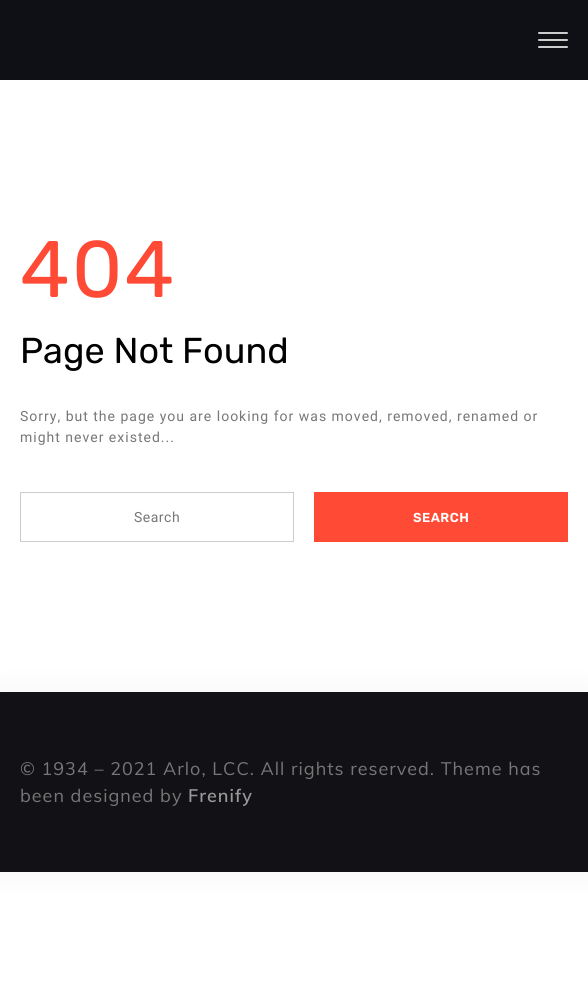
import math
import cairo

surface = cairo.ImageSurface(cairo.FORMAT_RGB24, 588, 994)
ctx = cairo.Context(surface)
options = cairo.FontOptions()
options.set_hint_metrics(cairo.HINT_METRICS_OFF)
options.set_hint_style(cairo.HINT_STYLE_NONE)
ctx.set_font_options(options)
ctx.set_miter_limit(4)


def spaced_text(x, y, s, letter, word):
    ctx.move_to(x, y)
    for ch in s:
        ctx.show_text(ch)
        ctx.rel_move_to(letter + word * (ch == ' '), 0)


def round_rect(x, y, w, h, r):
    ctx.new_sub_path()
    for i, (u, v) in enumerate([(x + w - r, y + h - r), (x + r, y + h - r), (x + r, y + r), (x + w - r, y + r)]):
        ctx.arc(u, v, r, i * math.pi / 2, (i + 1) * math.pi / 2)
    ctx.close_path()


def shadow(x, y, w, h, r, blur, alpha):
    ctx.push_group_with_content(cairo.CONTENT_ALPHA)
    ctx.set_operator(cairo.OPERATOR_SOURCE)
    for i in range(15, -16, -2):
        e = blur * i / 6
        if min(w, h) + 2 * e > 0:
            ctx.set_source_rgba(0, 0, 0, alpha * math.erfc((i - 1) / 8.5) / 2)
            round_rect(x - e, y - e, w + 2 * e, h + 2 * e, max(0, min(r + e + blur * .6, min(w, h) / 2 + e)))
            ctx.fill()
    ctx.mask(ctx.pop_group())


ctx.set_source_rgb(1, 1, 1)
ctx.paint()
ctx.set_source_rgb(0.059, 0.059, 0.086)
ctx.rectangle(0, 0, 588, 80)
ctx.fill()
ctx.set_source_rgb(0.8, 0.8, 0.8)
round_rect(538, 46, 30, 2, 1)
ctx.fill()
round_rect(538, 32, 30, 2, 1)
ctx.fill()
round_rect(538, 39, 30, 2, 1)
ctx.fill()
ctx.select_font_face("Rubik")
ctx.set_font_size(80)
ctx.set_source_rgb(1, 0.294, 0.212)
spaced_text(20, 297, "404", 2, 0)
ctx.set_font_size(36)
ctx.set_source_rgb(0, 0, 0)
ctx.move_to(20, 363)
ctx.show_text("Page Not Found")
ctx.select_font_face("Roboto")
ctx.set_font_size(14)
ctx.set_source_rgb(0.467, 0.467, 0.467)
spaced_text(20, 421, "Sorry, but the page you are looking for was moved, removed, renamed or", 1, 0)
spaced_text(20, 442, "might never existed...", 1, 0)
ctx.rectangle(20.5, 492.5, 273, 49)
ctx.set_source_rgb(0.8, 0.8, 0.8)
ctx.set_line_width(1)
ctx.stroke()
ctx.set_source_rgb(0.467, 0.467, 0.467)
spaced_text(134, 522, "Search", 0.5, 0)
ctx.set_source_rgb(1, 0.294, 0.212)
ctx.rectangle(314, 492, 254, 50)
ctx.fill()
ctx.select_font_face("Rubik SemiBold")
ctx.set_font_size(13)
ctx.set_source_rgb(1, 1, 1)
spaced_text(413, 522, "SEARCH", 0.5, 0)
ctx.set_source_rgb(0, 0, 0)
shadow(0, 692, 588, 180, 0, 15, 0.05)
ctx.set_source_rgb(0.071, 0.071, 0.086)
ctx.rectangle(0, 692, 588, 180)
ctx.fill()
ctx.select_font_face("Muli")
ctx.set_font_size(18)
ctx.set_source_rgb(0.467, 0.467, 0.467)
spaced_text(20, 775, "© 1934 – 2021 Arlo, LCC. All rights reserved. Theme has", 1, 0)
spaced_text(20, 802, "been designed by", 1, 0)
ctx.select_font_face("Muli SemiBold")
ctx.set_source_rgb(0.6, 0.6, 0.6)
spaced_text(188, 802, "Frenify", 1, 0)
surface.write_to_png("page.png")
